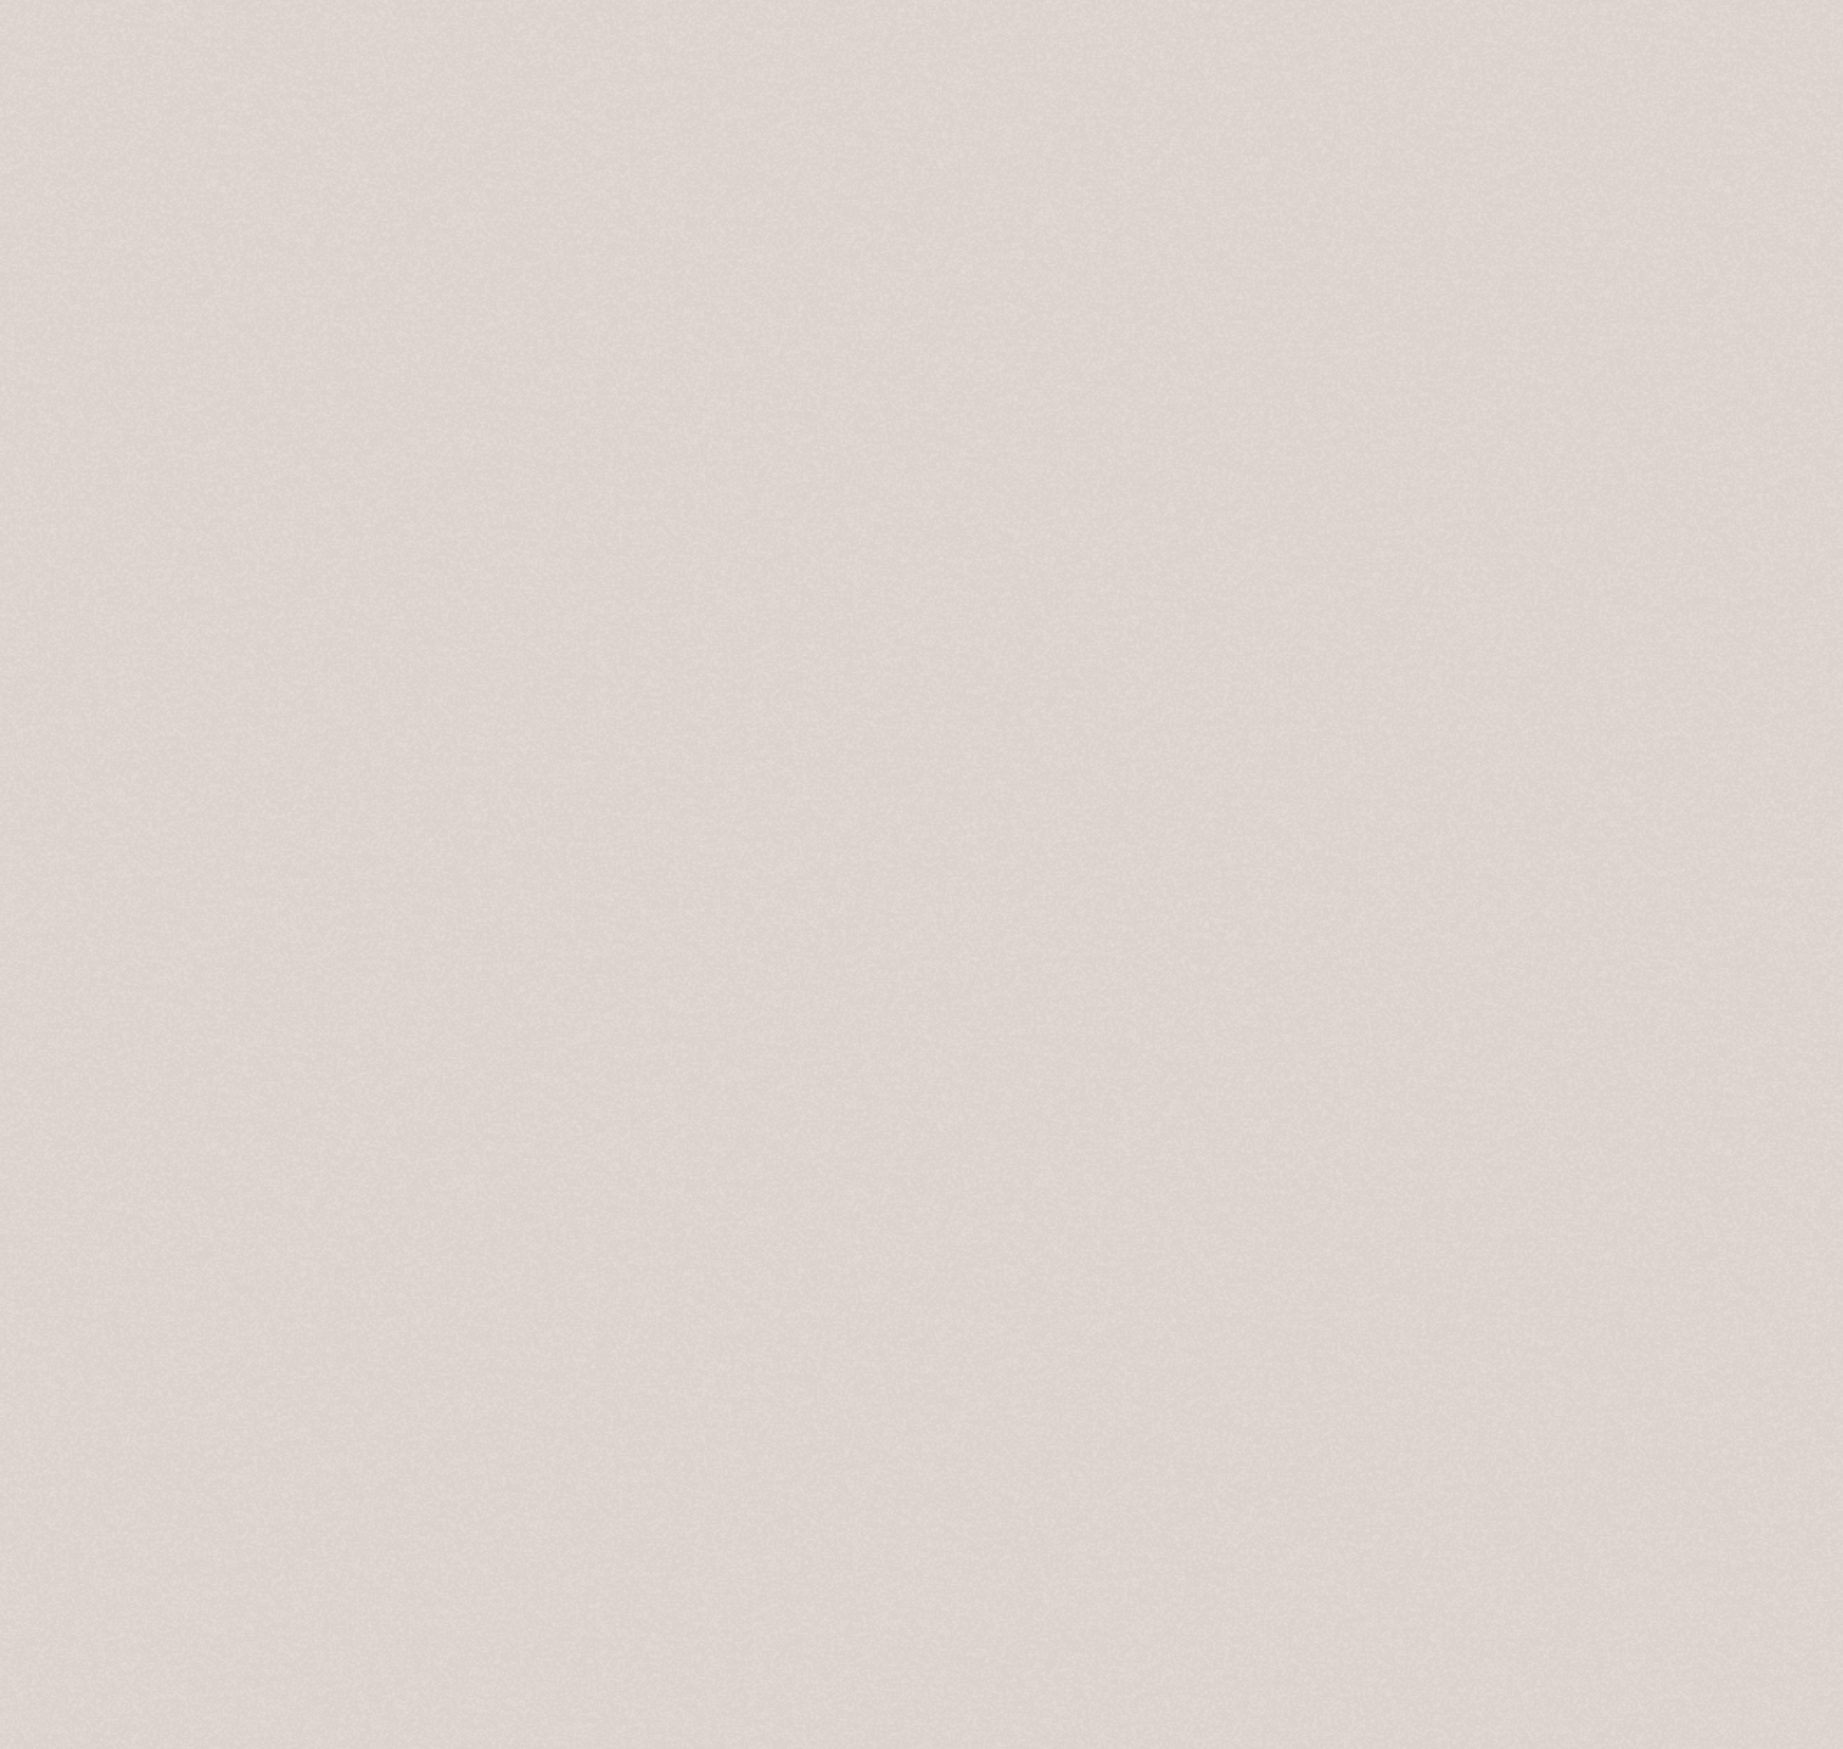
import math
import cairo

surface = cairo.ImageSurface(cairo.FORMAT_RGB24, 1843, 1749)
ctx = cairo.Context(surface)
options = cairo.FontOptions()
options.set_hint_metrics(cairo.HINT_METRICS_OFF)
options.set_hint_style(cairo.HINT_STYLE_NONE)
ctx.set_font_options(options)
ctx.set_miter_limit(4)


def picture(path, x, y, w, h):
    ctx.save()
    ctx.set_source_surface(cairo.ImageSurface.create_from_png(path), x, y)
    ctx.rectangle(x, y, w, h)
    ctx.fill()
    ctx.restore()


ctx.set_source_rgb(0.929, 0.886, 0.871)
ctx.paint()
picture("img1.png", 0, 0, 1843, 1749)
surface.write_to_png("page.png")
